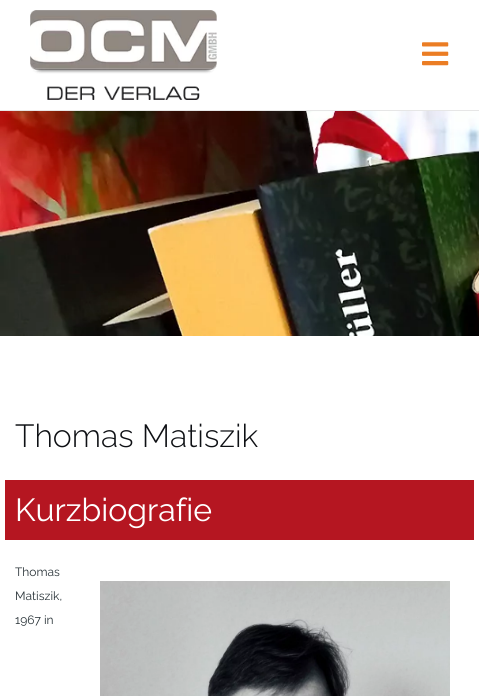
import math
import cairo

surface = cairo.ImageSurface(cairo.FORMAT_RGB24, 479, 696)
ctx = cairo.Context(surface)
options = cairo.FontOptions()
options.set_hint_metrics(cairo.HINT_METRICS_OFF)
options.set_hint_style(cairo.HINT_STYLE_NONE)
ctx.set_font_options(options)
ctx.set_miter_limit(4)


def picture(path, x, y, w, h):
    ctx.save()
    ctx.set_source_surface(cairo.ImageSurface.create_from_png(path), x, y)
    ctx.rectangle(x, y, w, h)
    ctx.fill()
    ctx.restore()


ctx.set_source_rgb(1, 1, 1)
ctx.paint()
ctx.set_source_rgb(0.902, 0.902, 0.902)
ctx.rectangle(0, 110, 479, 1)
ctx.fill()
picture("img1.png", 30, 10, 187, 90)
picture("img2.png", 422, 42, 27, 24)
picture("img3.png", 0, 111, 479, 225)
ctx.select_font_face("Raleway Light")
ctx.set_font_size(32)
ctx.set_source_rgb(0.055, 0.063, 0.082)
ctx.move_to(15, 447)
ctx.show_text("Thomas Matiszik")
ctx.set_source_rgb(0.71, 0.086, 0.129)
ctx.rectangle(5, 480, 469, 60)
ctx.fill()
ctx.select_font_face("Raleway")
ctx.set_source_rgb(1, 1, 1)
ctx.move_to(15, 521)
ctx.show_text("Kurzbiografie")
ctx.set_font_size(12)
ctx.set_source_rgb(0.157, 0.196, 0.216)
ctx.move_to(15, 576)
ctx.show_text("Thomas")
ctx.move_to(15, 600)
ctx.show_text("Matiszik,")
ctx.move_to(15, 624)
ctx.show_text("1967 in")
picture("img4.png", 100, 581, 350, 115)
surface.write_to_png("page.png")
